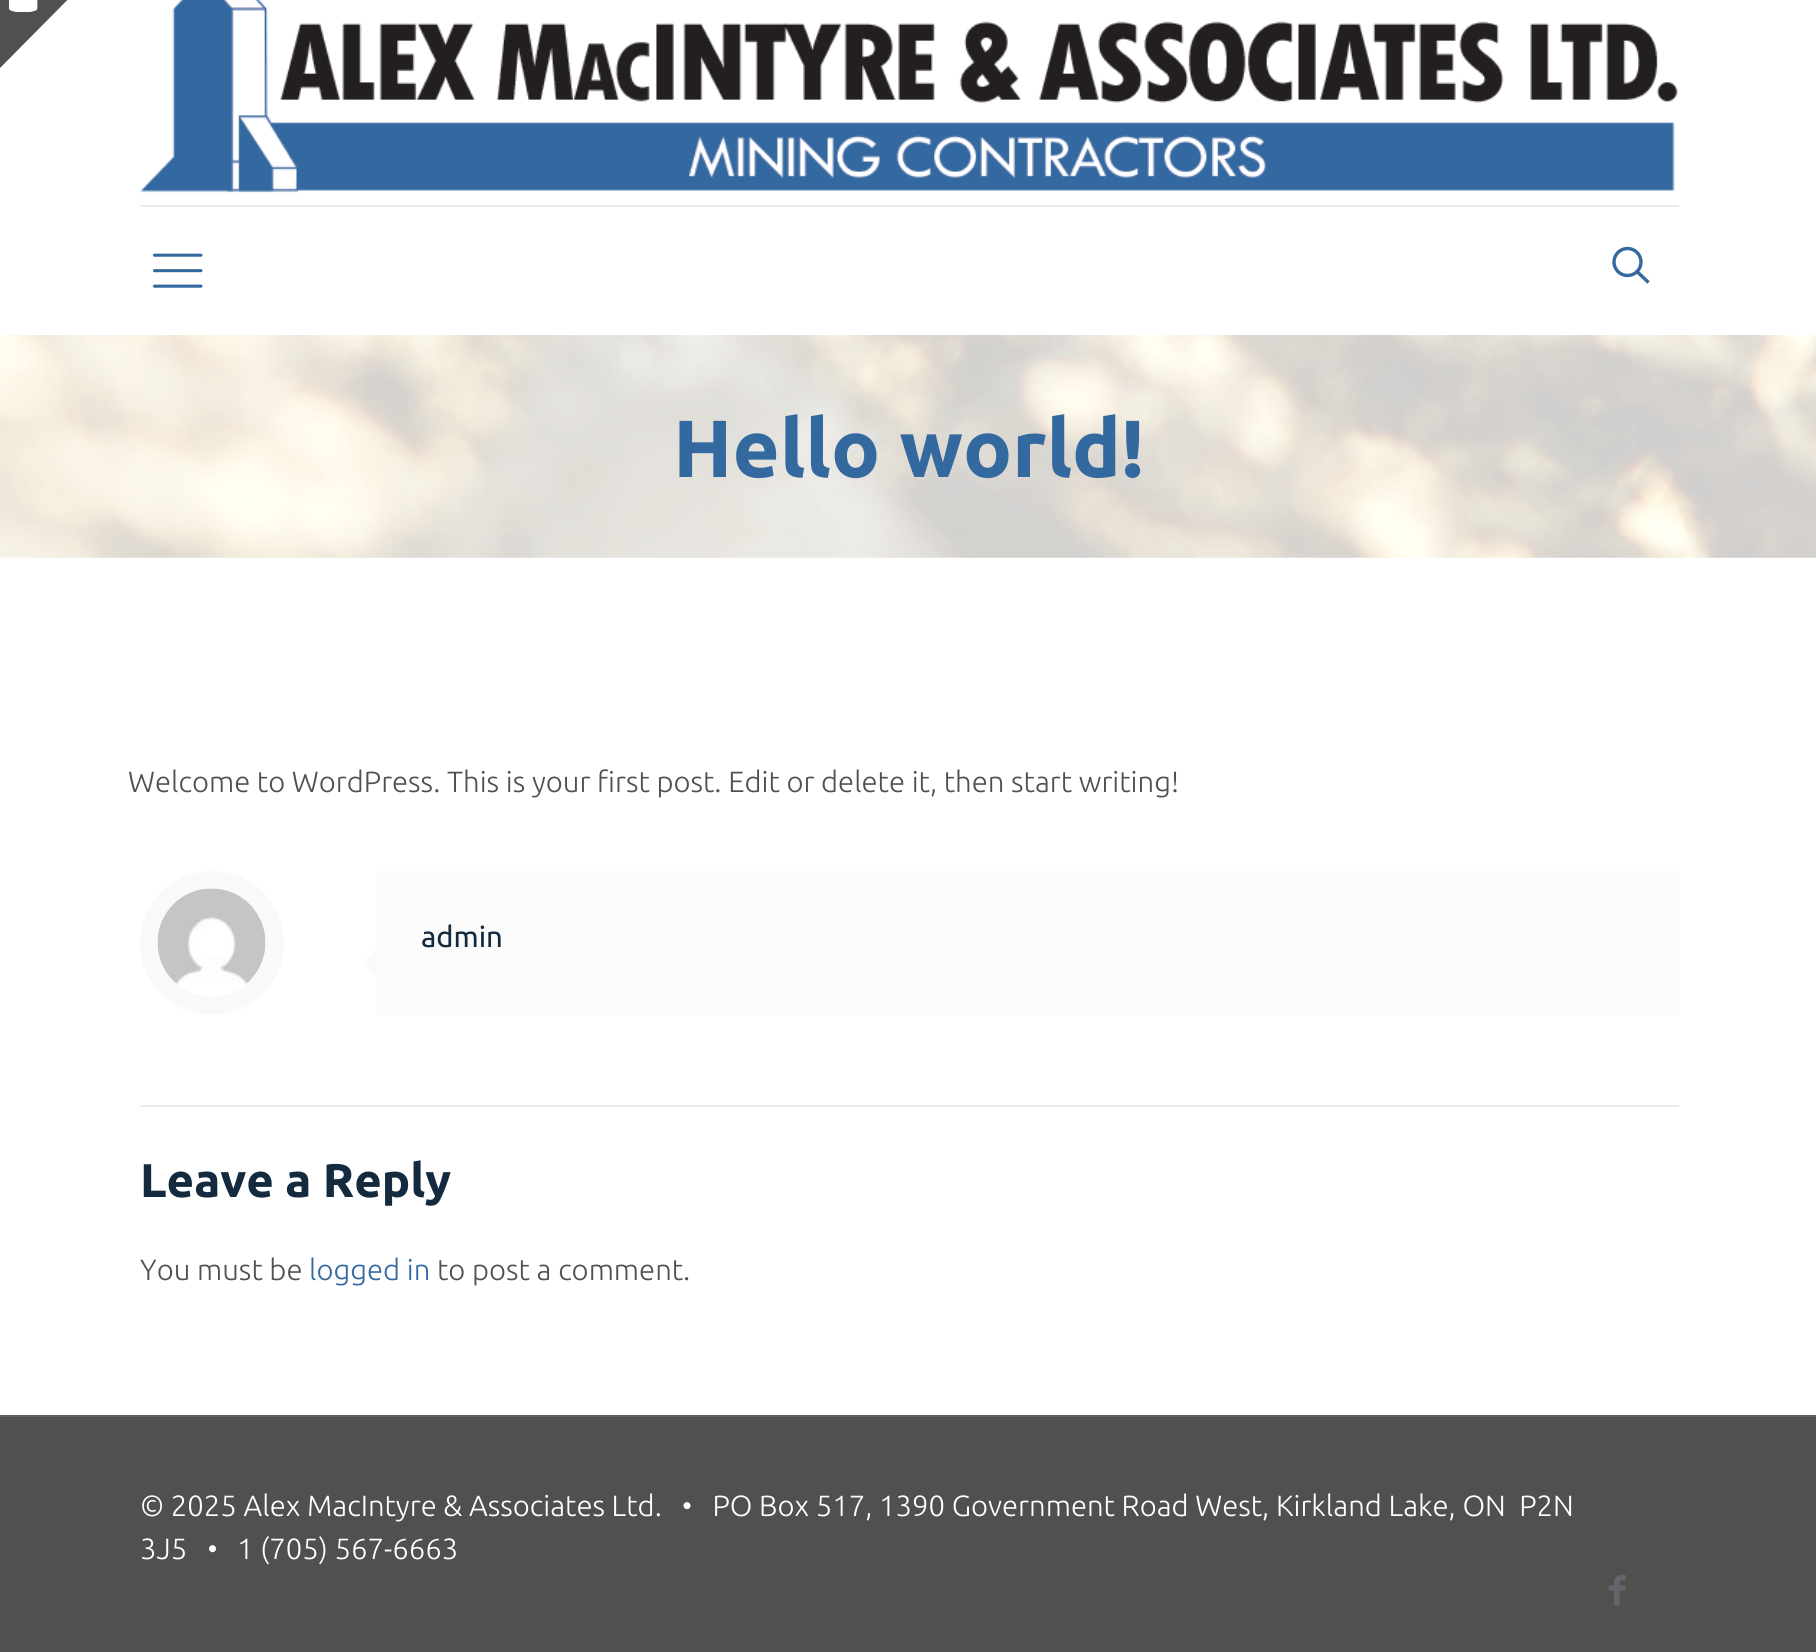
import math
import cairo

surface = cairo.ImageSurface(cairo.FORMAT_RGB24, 1816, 1652)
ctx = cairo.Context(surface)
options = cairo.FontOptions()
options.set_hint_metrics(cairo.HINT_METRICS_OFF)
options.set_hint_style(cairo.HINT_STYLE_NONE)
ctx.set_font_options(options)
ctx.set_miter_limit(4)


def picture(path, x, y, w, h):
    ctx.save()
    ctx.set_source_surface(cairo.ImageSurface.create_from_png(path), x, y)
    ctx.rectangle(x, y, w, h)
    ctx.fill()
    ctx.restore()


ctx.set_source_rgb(1, 1, 1)
ctx.paint()
ctx.set_source_rgb(0.314, 0.318, 0.31)
ctx.new_path()
ctx.move_to(0, -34)
ctx.line_to(101, -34)
ctx.line_to(0, 68)
ctx.close_path()
ctx.fill()
picture("img1.png", 9, 0, 29, 12)
picture("img2.png", 0, 335, 1816, 223)
ctx.set_source_rgb(0.922, 0.922, 0.922)
ctx.rectangle(140, 205, 1539, 2)
ctx.fill()
picture("img3.png", 140, 0, 1538, 193)
picture("img4.png", 153, 253, 50, 35)
ctx.arc(1627.5, 262, 13.5, 0, 2 * math.pi)
ctx.set_source_rgb(0.204, 0.412, 0.624)
ctx.set_line_width(3.4)
ctx.stroke()
ctx.new_path()
ctx.move_to(1637, 271.5)
ctx.line_to(1648.5, 282.5)
ctx.stroke()
ctx.select_font_face("Ubuntu", cairo.FONT_SLANT_NORMAL, cairo.FONT_WEIGHT_BOLD)
ctx.set_font_size(81)
ctx.move_to(673, 477)
ctx.show_text("Hello world!")
ctx.select_font_face("Ubuntu Light")
ctx.set_font_size(29.25)
ctx.set_source_rgb(0.314, 0.318, 0.31)
ctx.move_to(128, 792)
ctx.show_text("Welcome to WordPress. This is your first post. Edit or delete it, then start writing!")
ctx.new_path()
ctx.arc(212, 943, 63, 0, 2 * math.pi)
ctx.set_source_rgb(0.973, 0.973, 0.973)
ctx.set_line_width(18)
ctx.stroke()
picture("img5.png", 157, 888, 109, 96)
ctx.set_source_rgb(0.984, 0.984, 0.984)
ctx.rectangle(376, 871, 1303, 144)
ctx.fill()
ctx.select_font_face("Ubuntu")
ctx.set_source_rgb(0.078, 0.165, 0.247)
ctx.move_to(421, 947)
ctx.show_text("admin")
ctx.set_source_rgb(0.98, 0.98, 0.98)
ctx.new_path()
ctx.move_to(376, 949.5)
ctx.line_to(376, 976.5)
ctx.line_to(362, 963)
ctx.close_path()
ctx.fill()
ctx.set_source_rgb(0.922, 0.922, 0.922)
ctx.rectangle(140, 1105, 1539, 2)
ctx.fill()
ctx.select_font_face("Ubuntu", cairo.FONT_SLANT_NORMAL, cairo.FONT_WEIGHT_BOLD)
ctx.set_font_size(47.25)
ctx.set_source_rgb(0.078, 0.165, 0.247)
ctx.move_to(140, 1197)
ctx.show_text("Leave a Reply")
ctx.select_font_face("Ubuntu Light")
ctx.set_font_size(29.25)
ctx.set_source_rgb(0.314, 0.318, 0.31)
ctx.move_to(140, 1280)
ctx.show_text("You must be")
ctx.set_source_rgb(0.204, 0.412, 0.624)
ctx.move_to(309, 1280)
ctx.show_text("logged in")
ctx.set_source_rgb(0.314, 0.318, 0.31)
ctx.move_to(437, 1280)
ctx.show_text("to post a comment.")
ctx.rectangle(0, 1417, 1816, 235)
ctx.fill()
ctx.set_source_rgb(0.384, 0.384, 0.38)
ctx.rectangle(0, 1415, 1816, 2)
ctx.fill()
ctx.set_source_rgb(1, 1, 1)
ctx.move_to(140, 1516)
ctx.show_text("© 2025 Alex MacIntyre & Associates Ltd.   •   PO Box 517, 1390 Government Road West, Kirkland Lake, ON  P2N")
ctx.move_to(140, 1559)
ctx.show_text("3J5   •")
ctx.move_to(237, 1559)
ctx.show_text("1 (705) 567-6663")
picture("img6.png", 1608, 1575, 18, 31)
surface.write_to_png("page.png")
